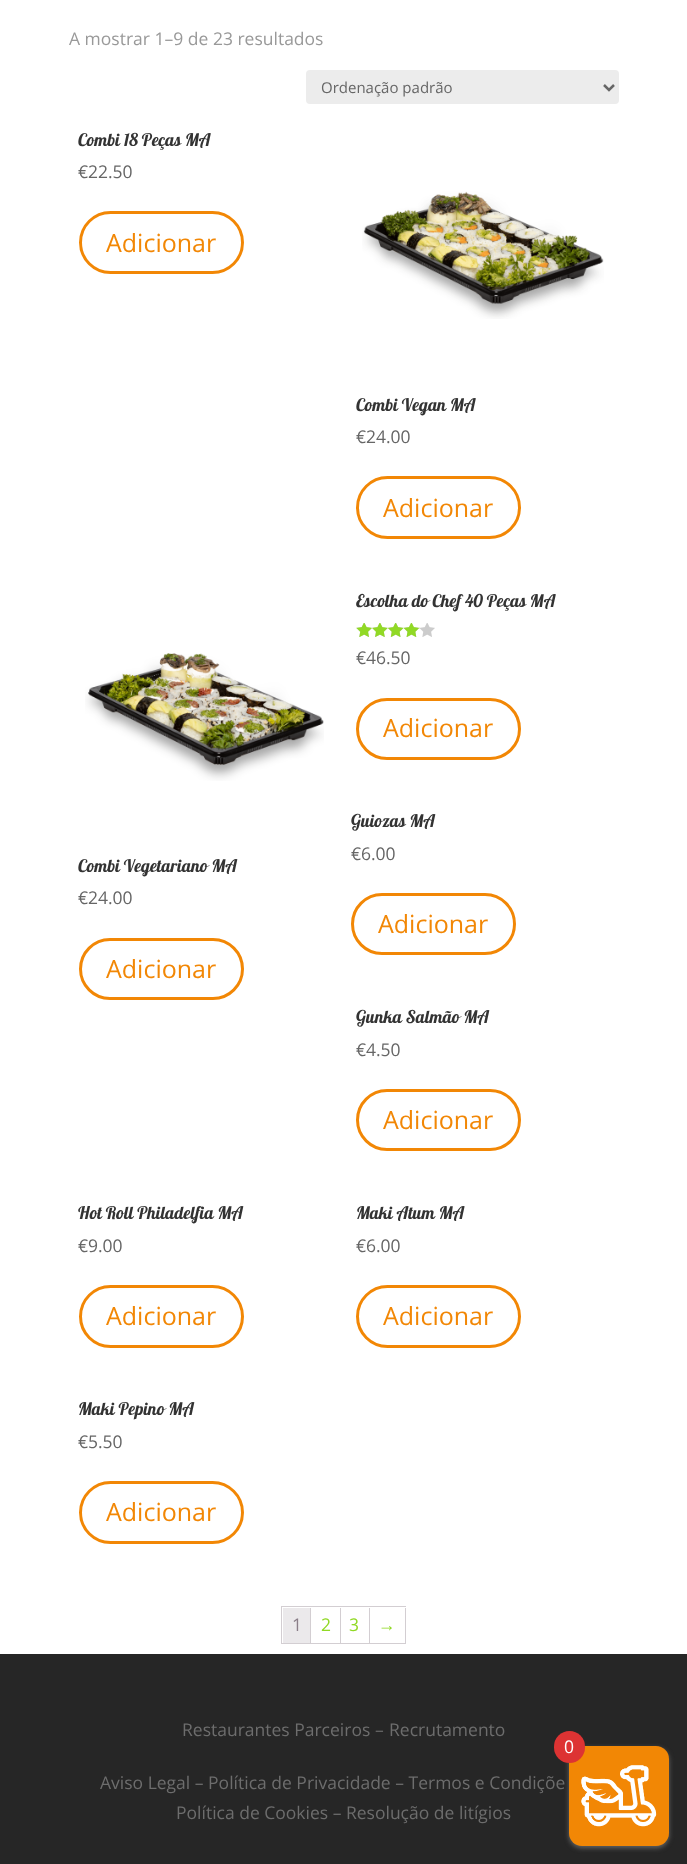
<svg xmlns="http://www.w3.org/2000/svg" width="687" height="1864">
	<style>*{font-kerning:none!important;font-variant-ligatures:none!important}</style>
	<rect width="100%" height="100%" fill="#FFFFFF" />
	<text x="69" y="45" font-family="Open Sans" font-size="17.5" fill="#999999">A mostrar 1–9 de 23 resultados</text>
	<rect x="306" y="70" width="313" height="34" rx="4" fill="#ECECEC" />
	<path d="M604 85L609 90L614 85" fill="none" stroke="#666666" stroke-width="2.5" />
	<text x="321" y="93" font-family="Open Sans" font-size="15" fill="#666666">Ordenação padrão</text>
	<text x="78" y="146" font-family="Lobster" font-size="17.5" fill="#333333">Combi 18 Peças MA</text>
	<text x="78" y="178" font-family="Open Sans" font-size="17.5" fill="#666666">€22.50</text>
	<rect x="80.5" y="212.5" width="162" height="60" rx="30" fill="none" stroke="#F28705" stroke-width="3" />
	<text x="106" y="252" font-family="Open Sans" font-size="25" fill="#F28705">Adicionar</text>
	<image x="362" y="191" width="242" height="128" href="assets/img1.png" />
	<text x="356" y="411" font-family="Lobster" font-size="17.5" fill="#333333">Combi Vegan MA</text>
	<text x="356" y="443" font-family="Open Sans" font-size="17.5" fill="#666666">€24.00</text>
	<rect x="357.5" y="477.5" width="162" height="60" rx="30" fill="none" stroke="#F28705" stroke-width="3" />
	<text x="383" y="517" font-family="Open Sans" font-size="25" fill="#F28705">Adicionar</text>
	<text x="356" y="607" font-family="Lobster" font-size="17.5" fill="#333333">Escolha do Chef 40 Peças MA</text>
	<image x="356" y="623" width="79" height="14" href="assets/img2.png" />
	<image x="356" y="623" width="64" height="14" href="assets/img3.png" />
	<text x="356" y="664" font-family="Open Sans" font-size="17.5" fill="#666666">€46.50</text>
	<rect x="357.5" y="699.5" width="162" height="59" rx="29.5" fill="none" stroke="#F28705" stroke-width="3" />
	<text x="383" y="737" font-family="Open Sans" font-size="25" fill="#F28705">Adicionar</text>
	<image x="85" y="653" width="239" height="128" href="assets/img4.png" />
	<text x="78" y="872" font-family="Lobster" font-size="17.5" fill="#333333">Combi Vegetariano MA</text>
	<text x="78" y="904" font-family="Open Sans" font-size="17.5" fill="#666666">€24.00</text>
	<rect x="80.5" y="939.5" width="162" height="59" rx="29.5" fill="none" stroke="#F28705" stroke-width="3" />
	<text x="106" y="978" font-family="Open Sans" font-size="25" fill="#F28705">Adicionar</text>
	<text x="351" y="827" font-family="Lobster" font-size="17.5" fill="#333333">Guiozas MA</text>
	<text x="351" y="860" font-family="Open Sans" font-size="17.5" fill="#666666">€6.00</text>
	<rect x="352.5" y="894.5" width="162" height="59" rx="29.5" fill="none" stroke="#F28705" stroke-width="3" />
	<text x="378" y="933" font-family="Open Sans" font-size="25" fill="#F28705">Adicionar</text>
	<text x="356" y="1023" font-family="Lobster" font-size="17.5" fill="#333333">Gunka Salmão MA</text>
	<text x="356" y="1056" font-family="Open Sans" font-size="17.5" fill="#666666">€4.50</text>
	<rect x="357.5" y="1090.5" width="162" height="59" rx="29.5" fill="none" stroke="#F28705" stroke-width="3" />
	<text x="383" y="1129" font-family="Open Sans" font-size="25" fill="#F28705">Adicionar</text>
	<text x="78" y="1219" font-family="Lobster" font-size="17.5" fill="#333333">Hot Roll Philadelfia MA</text>
	<text x="78" y="1252" font-family="Open Sans" font-size="17.5" fill="#666666">€9.00</text>
	<rect x="80.5" y="1286.5" width="162" height="60" rx="30" fill="none" stroke="#F28705" stroke-width="3" />
	<text x="106" y="1325" font-family="Open Sans" font-size="25" fill="#F28705">Adicionar</text>
	<text x="356" y="1219" font-family="Lobster" font-size="17.5" fill="#333333">Maki Atum MA</text>
	<text x="356" y="1252" font-family="Open Sans" font-size="17.5" fill="#666666">€6.00</text>
	<rect x="357.5" y="1286.5" width="162" height="60" rx="30" fill="none" stroke="#F28705" stroke-width="3" />
	<text x="383" y="1325" font-family="Open Sans" font-size="25" fill="#F28705">Adicionar</text>
	<text x="78" y="1415" font-family="Lobster" font-size="17.5" fill="#333333">Maki Pepino MA</text>
	<text x="78" y="1448" font-family="Open Sans" font-size="17.5" fill="#666666">€5.50</text>
	<rect x="80.5" y="1482.5" width="162" height="60" rx="30" fill="none" stroke="#F28705" stroke-width="3" />
	<text x="106" y="1521" font-family="Open Sans" font-size="25" fill="#F28705">Adicionar</text>
	<rect x="281" y="1606" width="125" height="1" fill="#D3CED2" />
	<rect x="281" y="1643" width="125" height="1" fill="#D3CED2" />
	<rect x="281" y="1606" width="1" height="38" fill="#D3CED2" />
	<rect x="310" y="1608" width="1" height="35" fill="#D3CED2" />
	<rect x="283" y="1608" width="27" height="35" fill="#EBE9EB" />
	<text x="292" y="1631" font-family="Open Sans" font-size="17.5" fill="#8A7E88">1</text>
	<rect x="340" y="1608" width="1" height="35" fill="#D3CED2" />
	<text x="321" y="1631" font-family="Open Sans" font-size="17.5" fill="#91D925">2</text>
	<rect x="369" y="1608" width="1" height="35" fill="#D3CED2" />
	<text x="349" y="1631" font-family="Open Sans" font-size="17.5" fill="#91D925">3</text>
	<rect x="405" y="1608" width="1" height="35" fill="#D3CED2" />
	<text x="378" y="1631" font-family="Liberation Sans" font-size="17.5" fill="#91D925">→</text>
	<rect x="0" y="1654" width="687" height="210" fill="#262626" />
	<text x="182" y="1736" font-family="Open Sans" font-size="17.5" fill="#6D6D6D">Restaurantes Parceiros</text>
	<text x="375" y="1736" font-family="Open Sans" font-size="17.5" fill="#666666">–</text>
	<g font-family="Open Sans" font-size="17.5" fill="#6D6D6D">
		<text x="389" y="1736">Recrutamento</text>
		<text x="100" y="1789">Aviso Legal – Política de Privacidade – Termos e Condiçõe</text>
		<text x="176" y="1819">Política de Cookies – Resolução de litígios</text>
	</g>
	<rect x="569" y="1748" width="100" height="100" rx="13" fill="#666666" filter="blur(2.5px)" />
	<rect x="569" y="1746" width="100" height="100" rx="13" fill="#F28705" />
	<rect x="554" y="1731" width="31" height="32" rx="15.5" fill="#DD3333" />
	<text x="564" y="1753" font-family="Open Sans" font-size="17.5" fill="#FFFFFF">0</text>
	<image x="581" y="1765" width="76" height="62" href="assets/img5.png" />
</svg>
